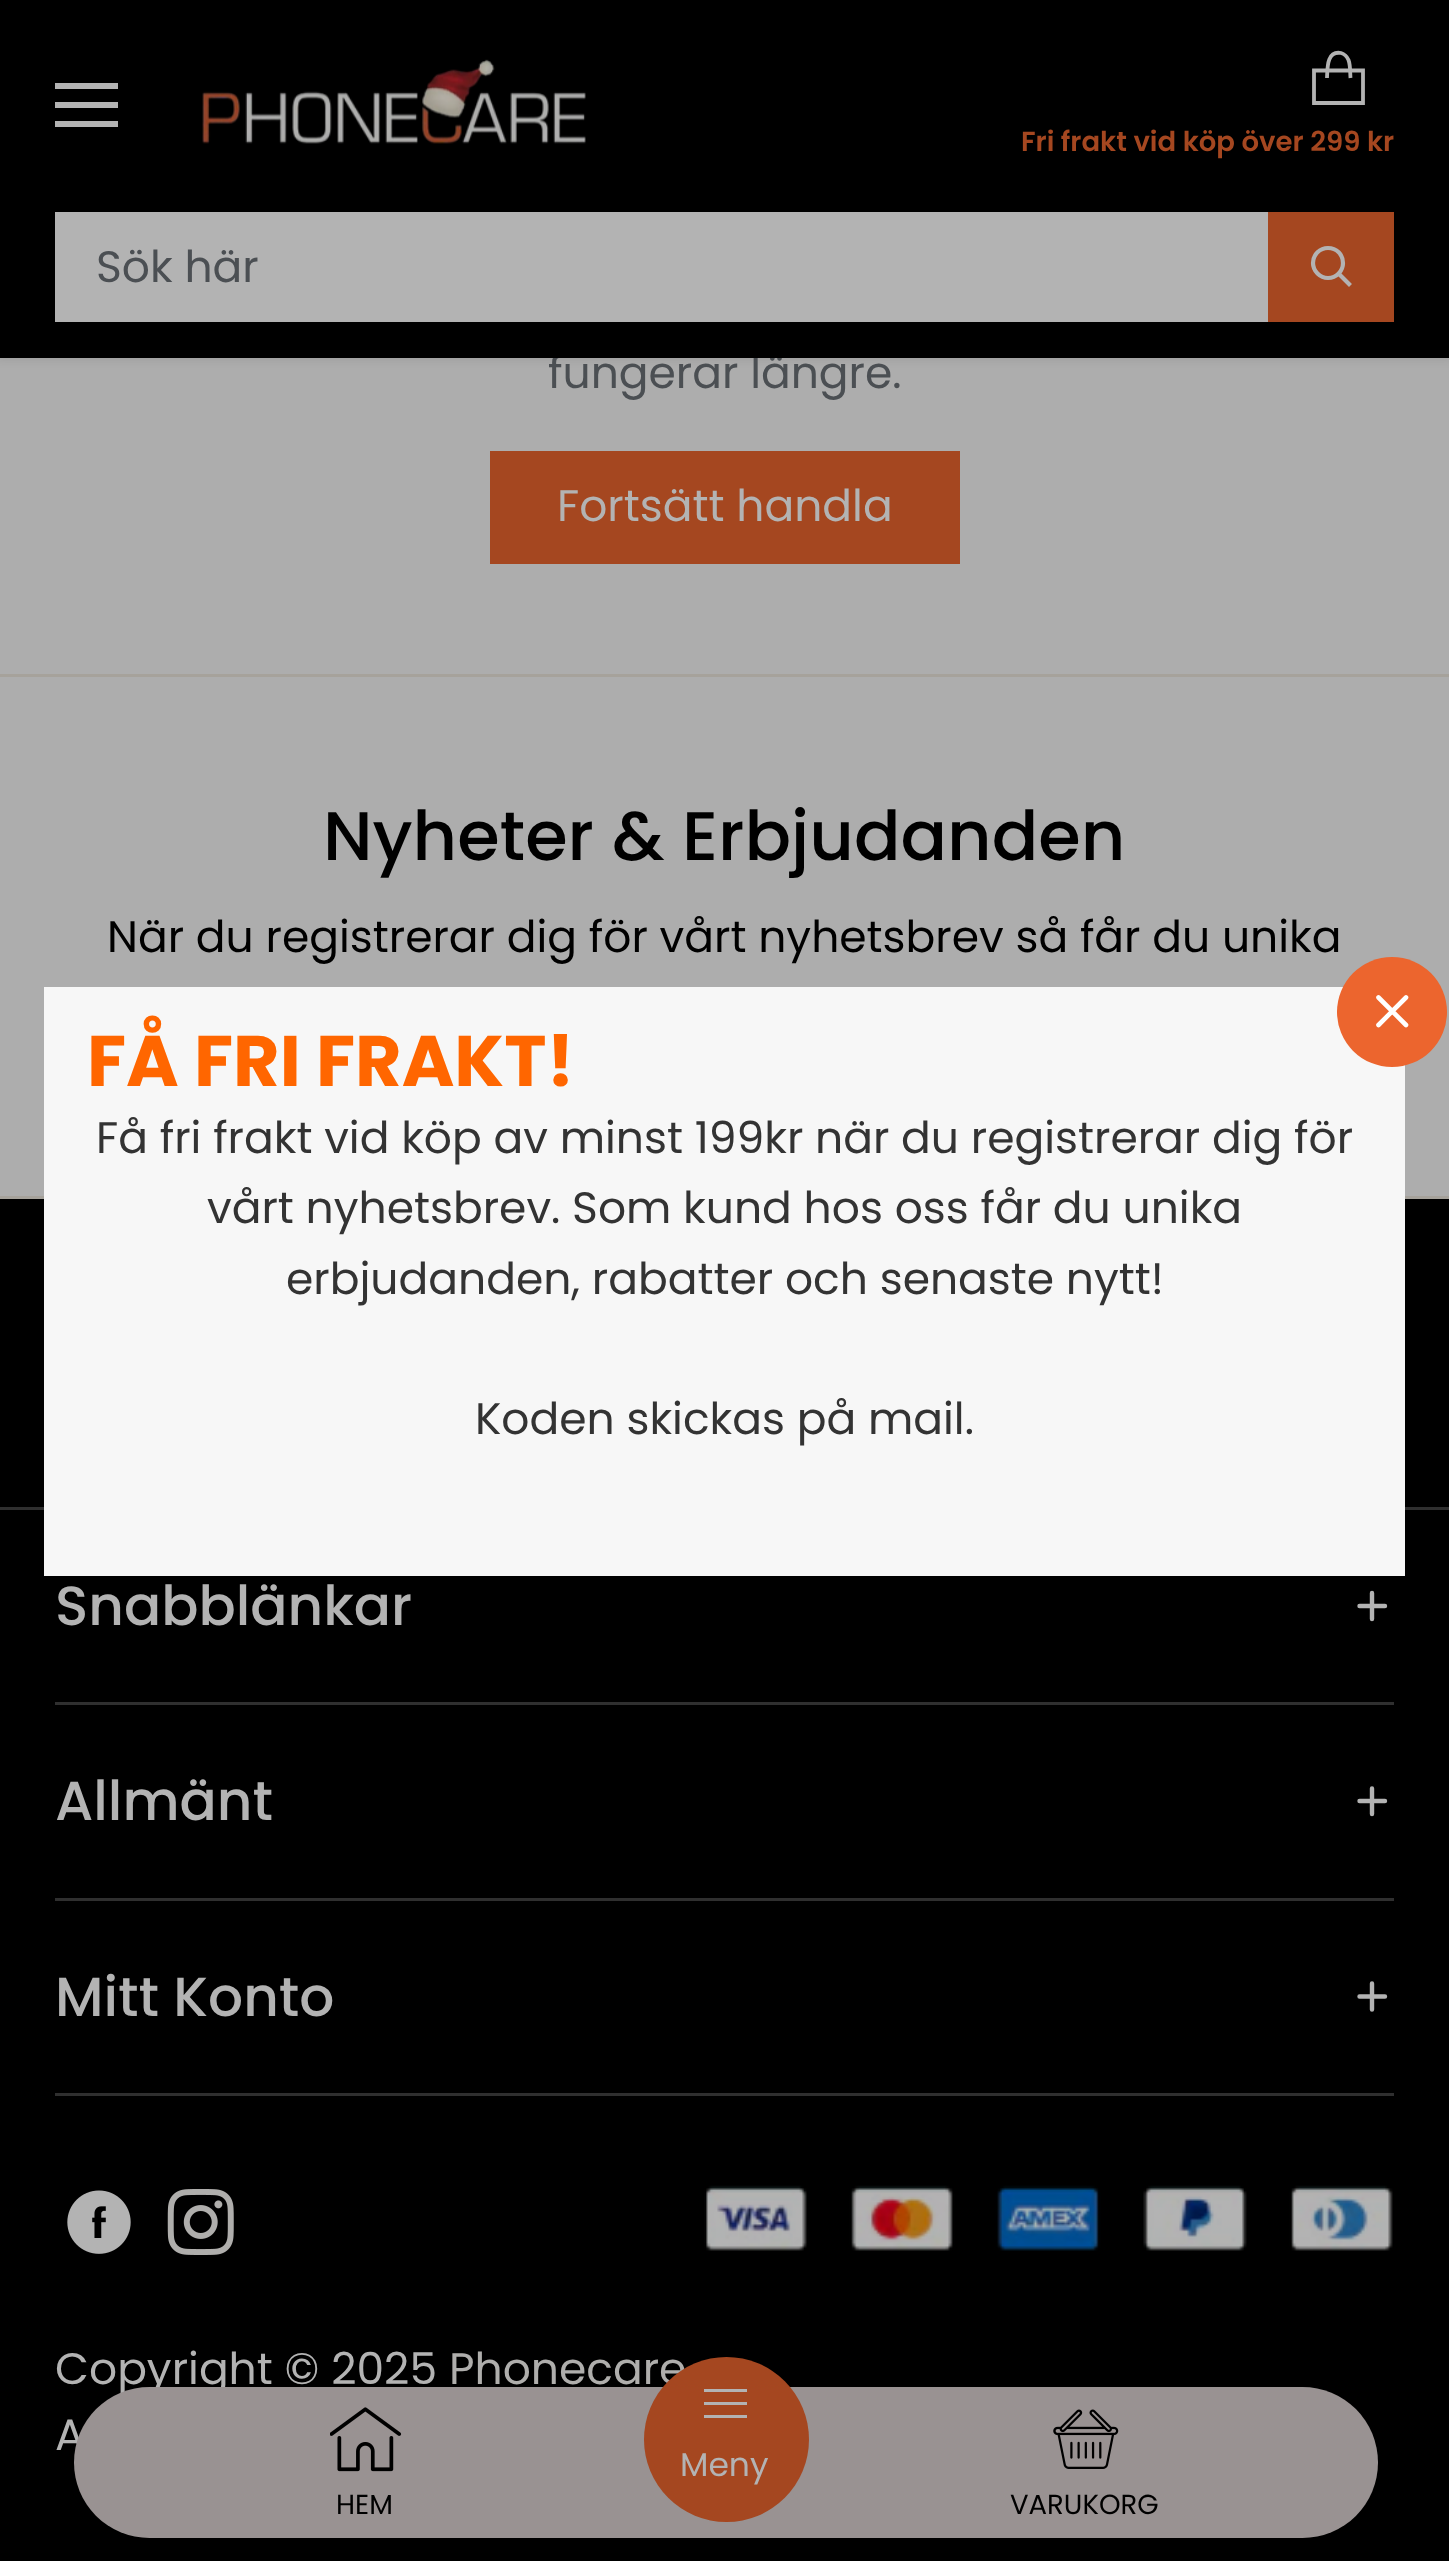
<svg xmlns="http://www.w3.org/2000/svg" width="1449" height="2561">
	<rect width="100%" height="100%" fill="#ADADAD" />
	<rect x="-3" y="-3" width="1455" height="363" fill="#000000" fill-opacity="0.08" filter="blur(4px)" />
	<text x="548" y="388" font-family="Poppins" font-size="44" fill="#4B4F53">fungerar längre.</text>
	<rect x="0" y="0" width="1449" height="358" fill="#000000" />
	<rect x="55" y="83" width="63" height="6" fill="#B3B3B3" />
	<rect x="55" y="102" width="63" height="6" fill="#B3B3B3" />
	<rect x="55" y="121" width="63" height="6" fill="#B3B3B3" />
	<image x="202" y="59" width="384" height="85" href="assets/img1.png" />
	<path d="M1350.5 78C1350 72 1350.5 65.5 1348.5 60C1347 56.5 1344.5 54 1341 53C1326.5 50.5 1327.5 68.5 1327 78" fill="none" stroke="#B3B3B3" stroke-width="3.8" stroke-linejoin="bevel" />
	<path d="M1363 103V70.5H1314V103Z" fill="none" stroke="#B3B3B3" stroke-width="3.8" />
	<text x="1021" y="151" font-family="Poppins" font-size="27.5" font-weight="600" fill="#A54720">Fri frakt vid köp över 299 kr</text>
	<rect x="55" y="212" width="1213" height="110" fill="#B3B3B3" />
	<text x="96" y="282" font-family="Poppins" font-size="44" fill="#4B4F53">Sök här</text>
	<rect x="1268" y="212" width="126" height="110" fill="#A54720" />
	<path d="M1349 284L1339 274" fill="none" stroke="#B3B3B3" stroke-width="4.2" stroke-linecap="square" />
	<path d="M1328 278C1336.5 278 1343 271 1343 263C1343 254.5 1336.5 248 1328 248C1320 248 1313 254.5 1313 263C1313 271 1320 278 1328 278Z" fill="none" stroke="#B3B3B3" stroke-width="4.2" />
	<rect x="490" y="451" width="470" height="113" fill="#A54720" />
	<text x="557" y="521" font-family="Poppins" font-size="44" fill="#B3B3B3">Fortsätt handla</text>
	<rect x="0" y="674" width="1449" height="3" fill="#A6A29B" />
	<text x="323" y="860" font-family="Poppins" font-size="68.75" font-weight="500" fill="#000000">Nyheter &amp; Erbjudanden</text>
	<text x="107" y="952" font-family="Poppins" font-size="44" fill="#000000">När du registrerar dig för vårt nyhetsbrev så får du unika</text>
	<rect x="0" y="1199" width="1449" height="308" fill="#000000" />
	<rect x="0" y="1196" width="1449" height="3" fill="#A6A29B" />
	<rect x="0" y="1507" width="1449" height="3" fill="#2F2F2F" />
	<rect x="0" y="1510" width="1449" height="1051" fill="#000000" />
	<rect x="55" y="1702" width="1339" height="3" fill="#2F2F2F" />
	<text x="55" y="1625" font-family="Poppins" font-size="55" font-weight="500" fill="#B3B3B3">Snabblänkar</text>
	<path d="M1372 1593V1619M1359.5 1606H1385" fill="none" stroke="#B3B3B3" stroke-width="4.4" stroke-linecap="round" stroke-linejoin="round" />
	<rect x="55" y="1898" width="1339" height="3" fill="#2F2F2F" />
	<text x="55" y="1820" font-family="Poppins" font-size="55" font-weight="500" fill="#B3B3B3">Allmänt</text>
	<path d="M1372 1788.5V1814M1359.5 1801H1385" fill="none" stroke="#B3B3B3" stroke-width="4.4" stroke-linecap="round" stroke-linejoin="round" />
	<rect x="55" y="2093" width="1339" height="3" fill="#2F2F2F" />
	<text x="55" y="2016" font-family="Poppins" font-size="55" font-weight="500" fill="#B3B3B3">Mitt Konto</text>
	<path d="M1372 1983.5V2009.5M1359.5 1996.5H1385" fill="none" stroke="#B3B3B3" stroke-width="4.4" stroke-linecap="round" stroke-linejoin="round" />
	<image x="67" y="2190" width="64" height="64" href="assets/img2.png" />
	<image x="167" y="2189" width="67" height="66" href="assets/img3.png" />
	<image x="704" y="2185" width="689" height="66" href="assets/img4.png" />
	<text x="55" y="2384" font-family="Poppins" font-size="44" fill="#B3B3B3">Copyright © 2025</text>
	<text x="449" y="2384" font-family="Poppins" font-size="44" fill="#AFAEAC">Phonecare</text>
	<text x="55" y="2450" font-family="Poppins" font-size="44" fill="#B3B3B3">A</text>
	<rect x="44" y="987" width="1361" height="589" fill="#F7F7F7" />
	<text x="87" y="1086" font-family="Poppins" font-size="71.5" font-weight="700" fill="#FF6600">FÅ FRI FRAKT!</text>
	<g font-family="Poppins" font-size="44" fill="#333333">
		<text x="96" y="1153">Få fri frakt vid köp av minst 199kr när du registrerar dig för</text>
		<text x="207" y="1223">vårt nyhetsbrev. Som kund hos oss får du unika</text>
		<text x="286" y="1294">erbjudanden, rabatter och senaste nytt!</text>
		<text x="475" y="1434">Koden skickas på mail.</text>
	</g>
	<circle cx="1392" cy="1012" r="55" fill="#EC652E" />
	<path d="M1406 997.5L1378.5 1025M1378.5 997.5L1406 1025" fill="none" stroke="#FFFFFF" stroke-width="4.6" stroke-linecap="round" stroke-linejoin="round" />
	<rect x="74" y="2387" width="1304" height="151" rx="75.5" fill="#999292" />
	<circle cx="726.5" cy="2439.5" r="82.5" fill="#A54720" />
	<rect x="704" y="2402" width="43" height="3" fill="#B3B3B3" />
	<rect x="704" y="2389" width="43" height="3" fill="#B3B3B3" />
	<rect x="704" y="2415" width="43" height="3" fill="#B3B3B3" />
	<text x="680" y="2476" font-family="Poppins" font-size="33" fill="#B3B3B3">Meny</text>
	<image x="330" y="2407" width="72" height="65" href="assets/img5.png" />
	<text x="336" y="2514" font-family="Poppins" font-size="27.5" fill="#000000">HEM</text>
	<image x="1053" y="2409" width="66" height="60" href="assets/img6.png" />
	<text x="1010" y="2514" font-family="Poppins" font-size="27.5" fill="#000000">VARUKORG</text>
</svg>
